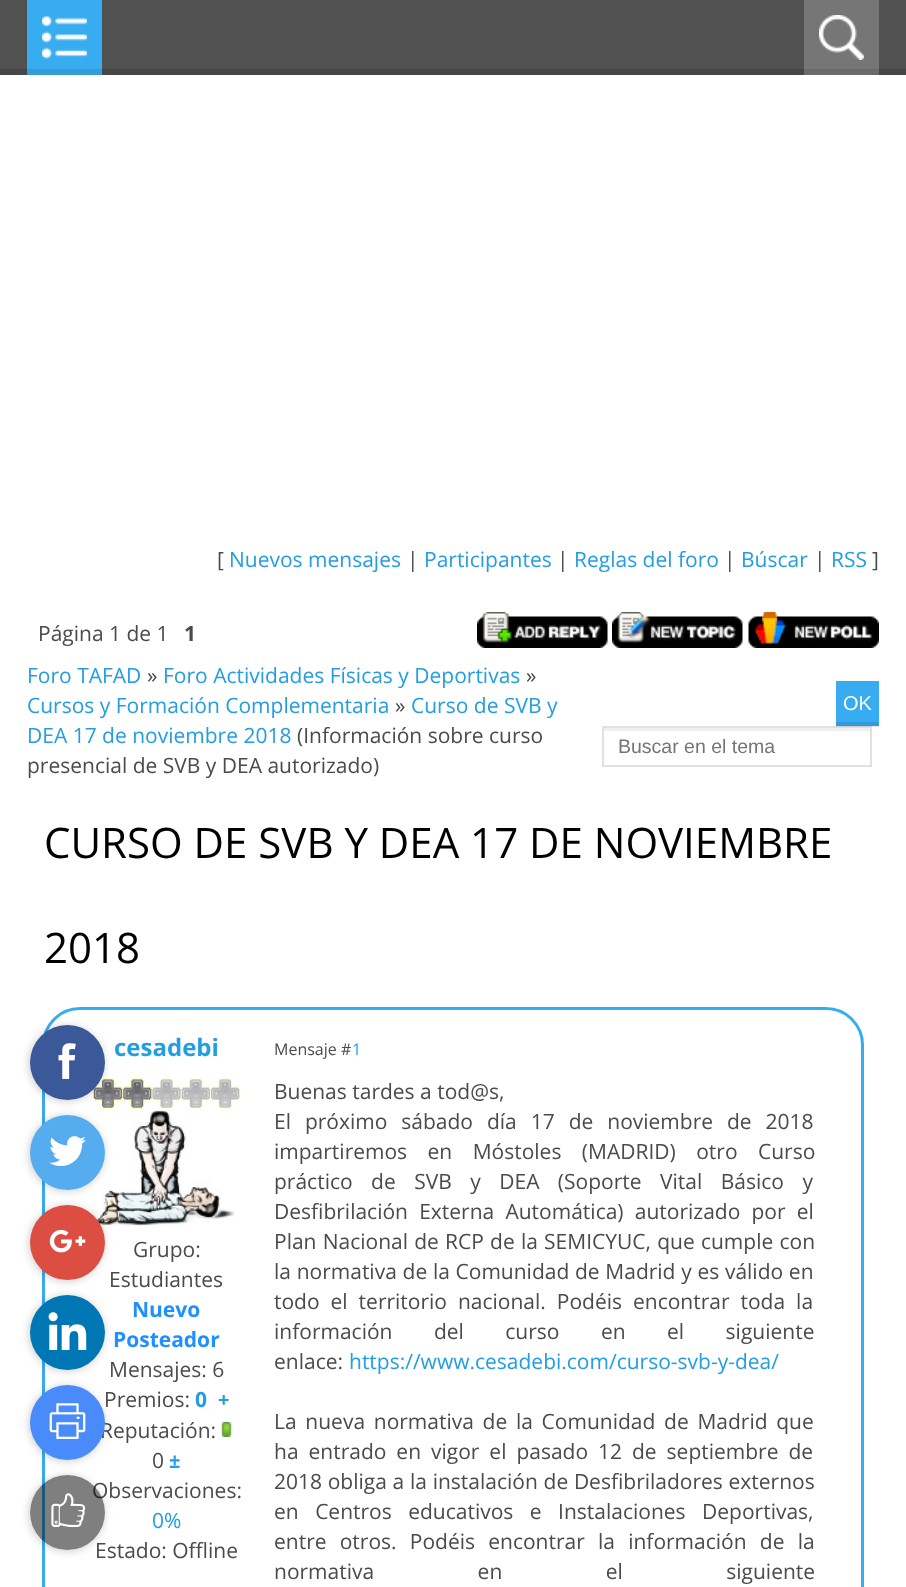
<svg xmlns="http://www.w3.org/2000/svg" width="906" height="1587">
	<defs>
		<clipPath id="clip1"><path d="M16 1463H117V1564H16ZM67.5 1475C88 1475 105 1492 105 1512.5C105 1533 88 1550 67.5 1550C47 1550 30 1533 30 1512.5C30 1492 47 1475 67.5 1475Z" clip-rule="evenodd" /></clipPath>
	</defs>
	<rect width="100%" height="100%" fill="#FFFFFF" />
	<rect x="0" y="0" width="906" height="69" fill="#515151" />
	<rect x="0" y="69" width="906" height="6" fill="#464646" />
	<rect x="27" y="0" width="75" height="69" fill="#38ACF0" />
	<image x="42" y="16" width="45" height="43" href="assets/img1.png" />
	<rect x="27" y="69" width="75" height="6" fill="#339DDA" />
	<rect x="804" y="0" width="75" height="69" fill="#767676" />
	<image x="819" y="15" width="45" height="45" href="assets/img2.png" />
	<rect x="804" y="69" width="75" height="6" fill="#6B6B6B" />
	<text x="217" y="567" font-family="Open Sans" font-size="21" fill="#4B4B4B">[</text>
	<text x="229" y="567" font-family="Open Sans" font-size="21" fill="#239DE4">Nuevos mensajes</text>
	<text x="407" y="567" font-family="Open Sans" font-size="21" fill="#4B4B4B">|</text>
	<text x="424" y="567" font-family="Open Sans" font-size="21" fill="#239DE4">Participantes</text>
	<text x="557" y="567" font-family="Open Sans" font-size="21" fill="#4B4B4B">|</text>
	<text x="574" y="567" font-family="Open Sans" font-size="21" fill="#239DE4">Reglas del foro</text>
	<text x="724" y="567" font-family="Open Sans" font-size="21" fill="#4B4B4B">|</text>
	<text x="741" y="567" font-family="Open Sans" font-size="21" fill="#239DE4">Búscar</text>
	<text x="814" y="567" font-family="Open Sans" font-size="21" fill="#4B4B4B">|</text>
	<text x="831" y="567" font-family="Open Sans" font-size="21" fill="#239DE4">RSS</text>
	<g font-family="Open Sans" font-size="21" fill="#4B4B4B">
		<text x="872" y="567">]</text>
		<text x="38" y="641">Página 1 de 1</text>
	</g>
	<text x="184" y="641" font-family="Open Sans" font-size="21" font-weight="700" fill="#4B4B4B">1</text>
	<image x="477" y="612" width="131" height="36" href="assets/img3.png" />
	<image x="612" y="612" width="131" height="36" href="assets/img4.png" />
	<image x="748" y="612" width="131" height="36" href="assets/img5.png" />
	<text x="27" y="683" font-family="Open Sans" font-size="21" fill="#239DE4">Foro TAFAD</text>
	<text x="147" y="683" font-family="Open Sans" font-size="21" fill="#4B4B4B">»</text>
	<text x="163" y="683" font-family="Open Sans" font-size="21" fill="#239DE4">Foro Actividades Físicas y Deportivas</text>
	<text x="526" y="683" font-family="Open Sans" font-size="21" fill="#4B4B4B">»</text>
	<text x="27" y="713" font-family="Open Sans" font-size="21" fill="#239DE4">Cursos y Formación Complementaria</text>
	<text x="395" y="713" font-family="Open Sans" font-size="21" fill="#4B4B4B">»</text>
	<g font-family="Open Sans" font-size="21" fill="#239DE4">
		<text x="411" y="713">Curso de SVB y</text>
		<text x="27" y="743">DEA 17 de noviembre 2018</text>
	</g>
	<g font-family="Open Sans" font-size="21" fill="#4B4B4B">
		<text x="297" y="743">(Información sobre curso</text>
		<text x="27" y="773">presencial de SVB y DEA autorizado)</text>
	</g>
	<rect x="836" y="681" width="43" height="45" fill="#38ACF0" />
	<rect x="603" y="728" width="267" height="3" fill="#F0F0F0" />
	<rect x="603" y="727" width="268" height="39" fill="none" stroke="#E1E1E1" stroke-width="2" />
	<rect x="836" y="722" width="43" height="5" fill="#000000" fill-opacity="0.09" />
	<text x="843" y="710" font-family="Liberation Sans" font-size="20" fill="#FFFFFF">OK</text>
	<text x="618" y="753" font-family="Liberation Sans" font-size="19.5" fill="#757575">Buscar en el tema</text>
	<g font-family="Open Sans" font-size="42" fill="#000000">
		<text x="44" y="858">CURSO DE SVB Y DEA 17 DE NOVIEMBRE</text>
		<text x="44" y="963">2018</text>
	</g>
	<rect x="43.5" y="1008.5" width="819" height="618" rx="36.5" fill="none" stroke="#38ACF0" stroke-width="3" />
	<text x="114" y="1056" font-family="Open Sans" font-size="24" font-weight="700" fill="#239DE4">cesadebi</text>
	<text x="274" y="1055" font-family="Open Sans" font-size="16" fill="#4B4B4B">Mensaje #</text>
	<text x="352" y="1055" font-family="Open Sans" font-size="16" fill="#239DE4">1</text>
	<image x="92" y="1078" width="149" height="31" href="assets/img6.png" />
	<image x="91" y="1110" width="144" height="117" href="assets/img7.png" />
	<g font-family="Open Sans" font-size="21" fill="#4B4B4B">
		<text x="133" y="1257">Grupo:</text>
		<text x="109" y="1287">Estudiantes</text>
	</g>
	<g font-family="Open Sans" font-size="21" font-weight="700" fill="#1E90FF">
		<text x="132" y="1317">Nuevo</text>
		<text x="113" y="1347">Posteador</text>
	</g>
	<g font-family="Open Sans" font-size="21" fill="#4B4B4B">
		<text x="109" y="1377">Mensajes: 6</text>
		<text x="104" y="1407">Premios:</text>
	</g>
	<text x="195" y="1407" font-family="Open Sans" font-size="21" font-weight="700" fill="#239DE4">0</text>
	<text x="218" y="1407" font-family="Open Sans" font-size="20" font-weight="700" fill="#239DE4">+</text>
	<text x="100" y="1438" font-family="Open Sans" font-size="21" fill="#4B4B4B">Reputación:</text>
	<image x="220" y="1422" width="12" height="15" href="assets/img8.png" />
	<text x="152" y="1468" font-family="Open Sans" font-size="21" fill="#4B4B4B">0</text>
	<text x="169" y="1468" font-family="Open Sans" font-size="20" font-weight="700" fill="#239DE4">±</text>
	<text x="92" y="1498" font-family="Open Sans" font-size="21" fill="#4B4B4B">Observaciones:</text>
	<text x="152" y="1528" font-family="Open Sans" font-size="21" fill="#239DE4">0%</text>
	<g font-family="Open Sans" font-size="21" fill="#4B4B4B">
		<text x="95" y="1558">Estado: Offline</text>
		<text x="274" y="1099">Buenas tardes a tod@s,</text>
		<text x="274" y="1129" word-spacing="8.5">El próximo sábado día 17 de noviembre de 2018</text>
		<text x="274" y="1159" word-spacing="15">impartiremos en Móstoles (MADRID) otro Curso</text>
		<text x="274" y="1189" word-spacing="13">práctico de SVB y DEA (Soporte Vital Básico y</text>
		<text x="274" y="1219" word-spacing="5.75">Desfibrilación Externa Automática) autorizado por el</text>
		<text x="274" y="1249" word-spacing="0.75">Plan Nacional de RCP de la SEMICYUC, que cumple con</text>
		<text x="274" y="1279" word-spacing="0.25">la normativa de la Comunidad de Madrid y es válido en</text>
		<text x="274" y="1309" word-spacing="5.5">todo el territorio nacional. Podéis encontrar toda la</text>
		<text x="274" y="1339" word-spacing="36">información del curso en el siguiente</text>
		<text x="274" y="1369">enlace:</text>
	</g>
	<text x="349" y="1369" font-family="Open Sans" font-size="21" fill="#239DE4">https://www.cesadebi.com/curso-svb-y-dea/</text>
	<g font-family="Open Sans" font-size="21" fill="#4B4B4B">
		<text x="274" y="1429" word-spacing="3.25">La nueva normativa de la Comunidad de Madrid que</text>
		<text x="274" y="1459" word-spacing="4.5">ha entrado en vigor el pasado 12 de septiembre de</text>
		<text x="274" y="1489" word-spacing="0.25">2018 obliga a la instalación de Desfibriladores externos</text>
		<text x="274" y="1519" word-spacing="11">en Centros educativos e Instalaciones Deportivas,</text>
		<text x="274" y="1549" word-spacing="7.75">entre otros. Podéis encontrar la información de la</text>
		<text x="274" y="1579" word-spacing="98">normativa en el siguiente</text>
	</g>
	<rect x="29" y="1026" width="75" height="75" rx="37.5" fill="#000000" fill-opacity="0.2" filter="blur(4px)" />
	<circle cx="67.5" cy="1062.5" r="37.5" fill="#3B5998" />
	<image x="58" y="1043" width="18" height="36" href="assets/img9.png" />
	<rect x="29" y="1116" width="75" height="75" rx="37.5" fill="#000000" fill-opacity="0.2" filter="blur(4px)" />
	<circle cx="67.5" cy="1152.5" r="37.5" fill="#55ACEE" />
	<image x="49" y="1136" width="37" height="30" href="assets/img10.png" />
	<rect x="29" y="1206" width="75" height="75" rx="37.5" fill="#000000" fill-opacity="0.2" filter="blur(4px)" />
	<circle cx="67.5" cy="1242.5" r="37.5" fill="#DC4E41" />
	<image x="49" y="1229" width="37" height="24" href="assets/img11.png" />
	<rect x="29" y="1296" width="75" height="75" rx="37.5" fill="#000000" fill-opacity="0.2" filter="blur(4px)" />
	<circle cx="67.5" cy="1332.5" r="37.5" fill="#0077B5" />
	<image x="48" y="1312" width="39" height="38" href="assets/img12.png" />
	<rect x="29" y="1386" width="75" height="75" rx="37.5" fill="#000000" fill-opacity="0.2" filter="blur(4px)" />
	<circle cx="67.5" cy="1422.5" r="37.5" fill="#498BFA" />
	<image x="49" y="1403" width="37" height="36" href="assets/img13.png" />
	<g clip-path="url(#clip1)">
		<rect x="29" y="1476" width="75" height="75" rx="37.5" fill="#000000" fill-opacity="0.2" filter="blur(4px)" />
	</g>
	<circle cx="67.5" cy="1512.5" r="37.5" fill="#000000" fill-opacity="0.5" />
	<image x="51" y="1493" width="35" height="34" href="assets/img14.png" />
</svg>
